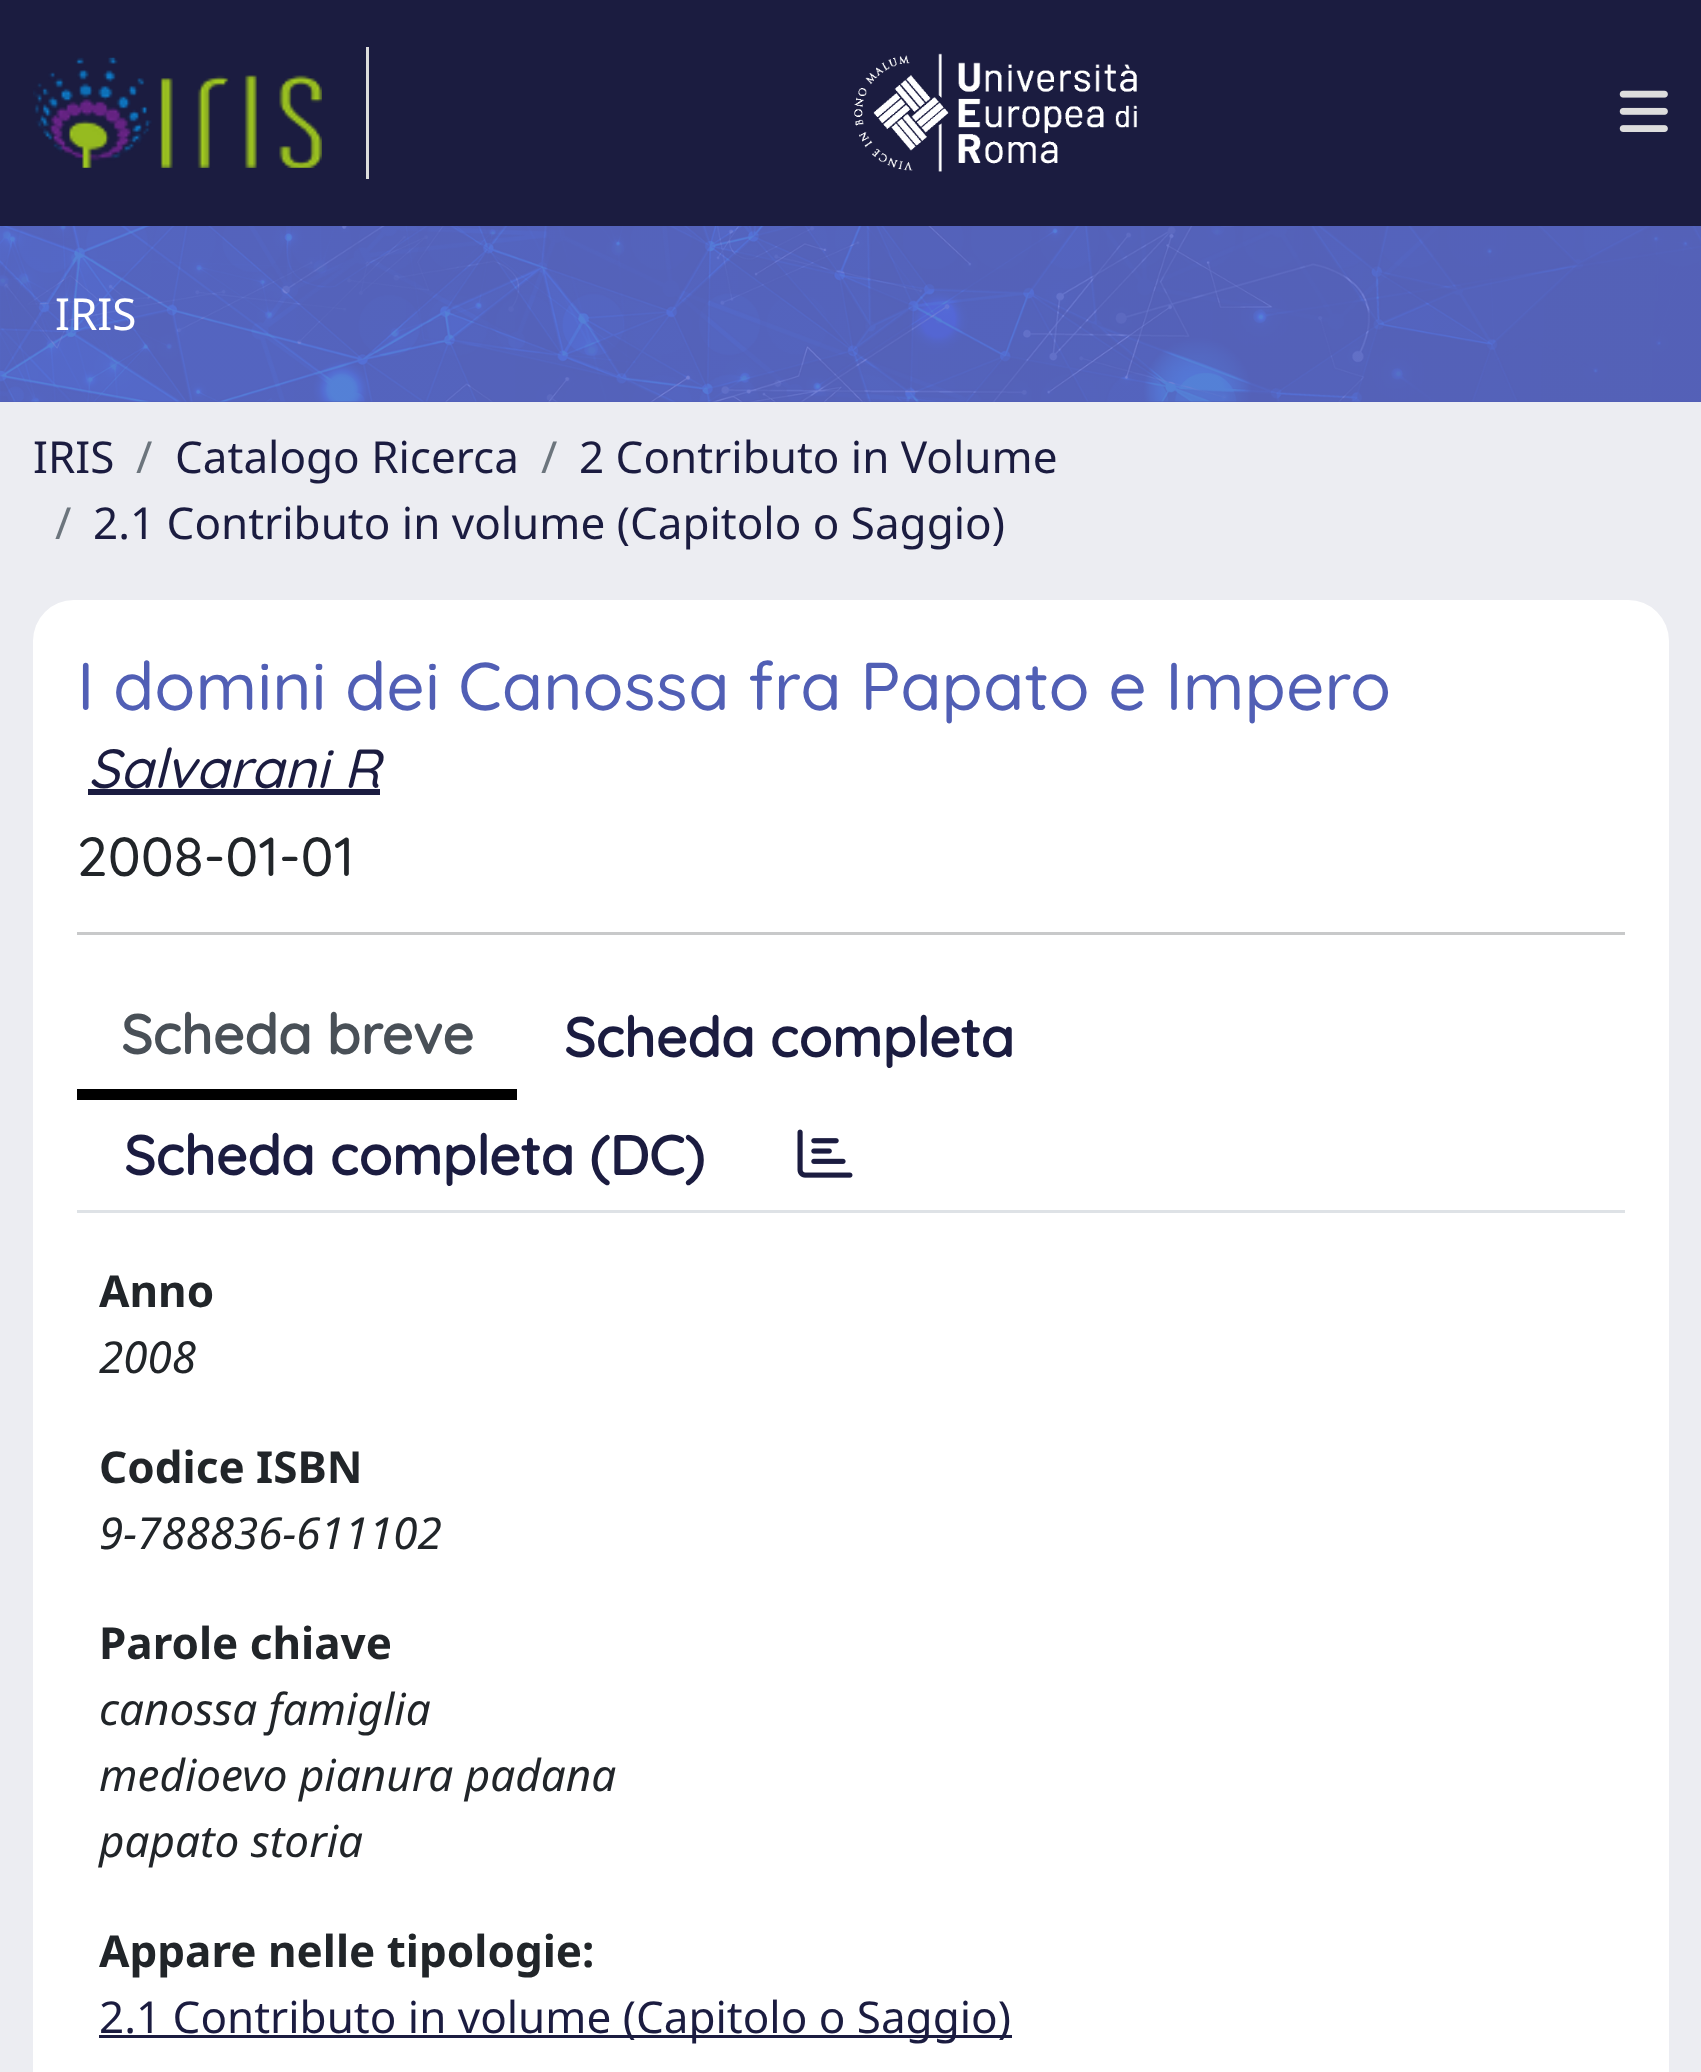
<svg xmlns="http://www.w3.org/2000/svg" width="1701" height="2072">
	<rect width="100%" height="100%" fill="#ECEDF2" />
	<rect x="0" y="0" width="1701" height="226" fill="#1B1C40" />
	<rect x="366" y="47" width="3" height="132" fill="#DDDDDD" />
	<image x="33" y="57" width="289" height="111" href="assets/img1.png" />
	<image x="854" y="53" width="283" height="119" href="assets/img2.png" />
	<image x="1619" y="90" width="49" height="42" href="assets/img3.png" />
	<rect x="0" y="226" width="1701" height="176" fill="#515FB5" />
	<image x="0" y="226" width="1701" height="176" href="assets/img4.png" />
	<text x="55" y="330" font-family="Noto Sans" font-size="44" fill="#FFFFFF">IRIS</text>
	<text x="33" y="473" font-family="Noto Sans" font-size="44" fill="#1B1C40">IRIS</text>
	<text x="136" y="473" font-family="Noto Sans" font-size="44" fill="#6C757D">/</text>
	<text x="175" y="473" font-family="Noto Sans" font-size="44" fill="#1B1C40">Catalogo Ricerca</text>
	<text x="541" y="473" font-family="Noto Sans" font-size="44" fill="#6C757D">/</text>
	<text x="579" y="473" font-family="Noto Sans" font-size="44" fill="#1B1C40">2 Contributo in Volume</text>
	<text x="55" y="539" font-family="Noto Sans" font-size="44" fill="#6C757D">/</text>
	<text x="93" y="539" font-family="Noto Sans" font-size="44" fill="#1B1C40">2.1 Contributo in volume (Capitolo o Saggio)</text>
	<rect x="33" y="600" width="1636" height="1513" rx="41" fill="#FFFFFF" />
	<text x="77" y="710" font-family="Quicksand" font-size="67.4" font-weight="500" fill="#515FB5">I domini dei Canossa fra Papato e Impero</text>
	<text x="88" y="788" font-family="Quicksand" font-size="55" font-weight="500" font-style="italic" fill="#1B1C40">Salvarani R</text>
	<rect x="88" y="789" width="292" height="6" fill="#1B1C40" />
	<text x="77" y="876" font-family="Quicksand" font-size="55" font-weight="500" fill="#212529">2008-01-01</text>
	<rect x="77" y="932" width="1548" height="3" fill="#C8C9CA" />
	<rect x="77" y="1210" width="1548" height="3" fill="#DEE2E6" />
	<rect x="77" y="1089" width="440" height="11" fill="#000000" />
	<text x="121" y="1054" font-family="Quicksand" font-size="55" font-weight="700" fill="#495057">Scheda breve</text>
	<g font-family="Quicksand" font-size="55" font-weight="700" fill="#1B1C40">
		<text x="564" y="1057">Scheda completa</text>
		<text x="124" y="1175">Scheda completa (DC)</text>
	</g>
	<image x="797" y="1129" width="56" height="49" href="assets/img5.png" />
	<text x="99" y="1307" font-family="Noto Sans" font-size="44" font-weight="700" fill="#212529">Anno</text>
	<text x="99" y="1373" font-family="Noto Sans" font-size="44" font-style="italic" fill="#212529">2008</text>
	<text x="99" y="1483" font-family="Noto Sans" font-size="44" font-weight="700" fill="#212529">Codice ISBN</text>
	<text x="99" y="1549" font-family="Noto Sans" font-size="44" font-style="italic" fill="#212529">9-788836-611102</text>
	<text x="99" y="1659" font-family="Noto Sans" font-size="44" font-weight="700" fill="#212529">Parole chiave</text>
	<g font-family="Noto Sans" font-size="44" font-style="italic" fill="#212529">
		<text x="99" y="1725">canossa famiglia</text>
		<text x="99" y="1791">medioevo pianura padana</text>
		<text x="99" y="1857">papato storia</text>
	</g>
	<text x="99" y="1967" font-family="Noto Sans" font-size="44" font-weight="700" fill="#212529">Appare nelle tipologie:</text>
	<rect x="99" y="2035" width="913" height="3" fill="#1B1C40" />
	<text x="99" y="2033" font-family="Noto Sans" font-size="44" fill="#1B1C40">2.1 Contributo in volume (Capitolo o Saggio)</text>
</svg>
